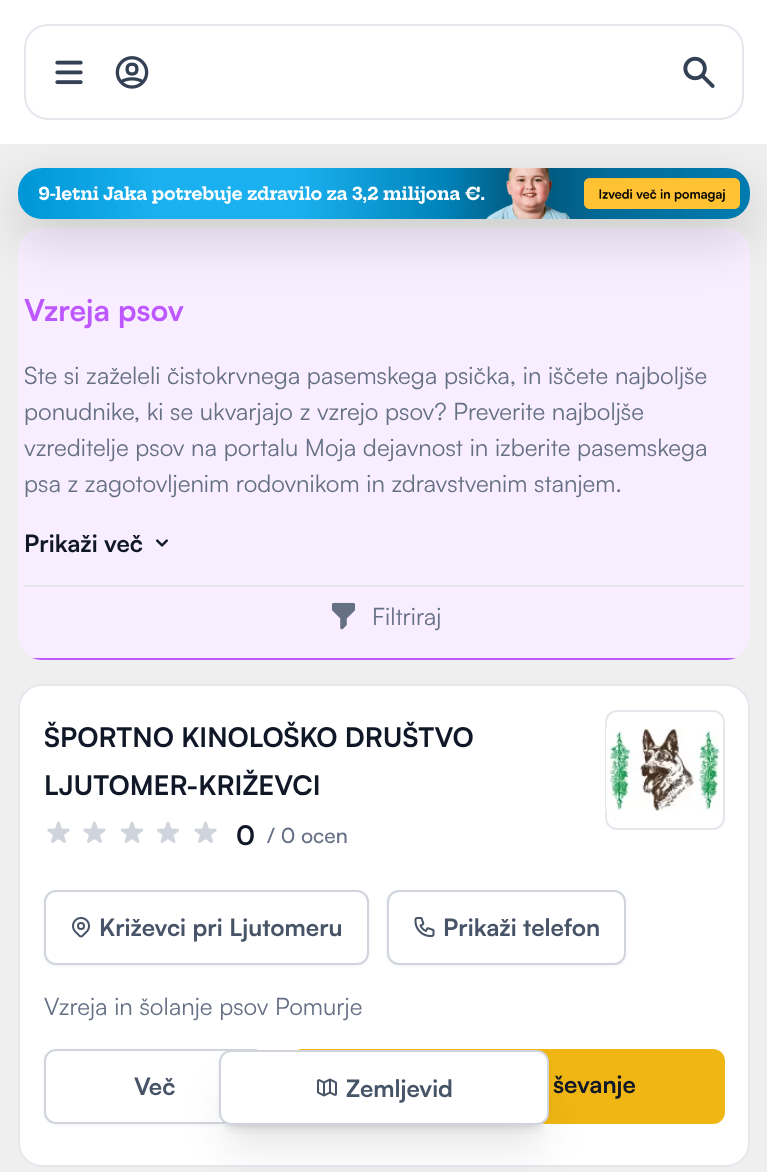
<svg xmlns="http://www.w3.org/2000/svg" width="767" height="1172">
	<defs>
		<clipPath id="clip1"><rect x="18" y="228" width="732" height="432" rx="24" /></clipPath>
		<clipPath id="clip2"><rect x="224" y="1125" width="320" height="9" /></clipPath>
		<clipPath id="clip3"><path d="M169 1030H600V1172H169ZM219 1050H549V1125H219Z" clip-rule="evenodd" /></clipPath>
	</defs>
	<rect width="100%" height="100%" fill="#EFEFEF" />
	<rect x="18" y="228" width="732" height="432" rx="24" fill="#FFFFFF" />
	<g clip-path="url(#clip1)">
		<path d="M-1 228H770V636C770 649.5 759.5 660 746 660H23C9.5 660-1 649.5-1 636Z" fill="#BD57FF" fill-opacity="0.1" />
	</g>
	<rect x="18" y="186" width="732" height="51" rx="24" fill="#000000" fill-opacity="0.16" filter="blur(26px)" />
	<rect x="0" y="0" width="767" height="144" fill="#FFFFFF" />
	<rect x="25" y="25" width="718" height="94" rx="23" fill="none" stroke="#E4E7EC" stroke-width="2" />
	<image x="55" y="60" width="28" height="25" href="assets/img1.png" />
	<image x="115" y="56" width="34" height="33" href="assets/img2.png" />
	<image x="683" y="56" width="32" height="32" href="assets/img3.png" />
	<image x="18" y="168" width="732" height="51" href="assets/img4.png" />
	<path d="M42 660H726C729 660 733 659 736 658H32C35 659 39 660 42 660Z" fill="#BD57FF" />
	<text x="24" y="321" font-family="Satoshi" font-size="30" font-weight="700" fill="#BD57FF">Vzreja psov</text>
	<g font-family="Satoshi" font-size="24" fill="#667085">
		<text x="24" y="384">Ste si zaželeli čistokrvnega pasemskega psička, in iščete najboljše</text>
		<text x="24" y="420">ponudnike, ki se ukvarjajo z vzrejo psov? Preverite najboljše</text>
		<text x="24" y="456">vzreditelje psov na portalu Moja dejavnost in izberite pasemskega</text>
		<text x="24" y="492">psa z zagotovljenim rodovnikom in zdravstvenim stanjem.</text>
	</g>
	<text x="24" y="552" font-family="Satoshi" font-size="24" font-weight="700" fill="#101828">Prikaži več</text>
	<image x="156" y="539" width="12" height="8" href="assets/img5.png" />
	<rect x="24" y="585" width="720" height="2" fill="#E4E7EC" />
	<image x="331" y="602" width="25" height="28" href="assets/img6.png" />
	<text x="372" y="625" font-family="Satoshi" font-size="24" fill="#667085">Filtriraj</text>
	<rect x="19" y="685" width="730" height="481" rx="23" fill="#FFFFFF" stroke="#E4E7EC" stroke-width="2" />
	<g font-family="Satoshi" font-size="27" font-weight="700" fill="#101828">
		<text x="44" y="747">ŠPORTNO KINOLOŠKO DRUŠTVO</text>
		<text x="44" y="795">LJUTOMER-KRIŽEVCI</text>
	</g>
	<image x="47" y="821" width="23" height="22" href="assets/img7.png" />
	<image x="83" y="821" width="23" height="22" href="assets/img7.png" />
	<image x="121" y="821" width="22" height="22" href="assets/img8.png" />
	<image x="157" y="821" width="22" height="22" href="assets/img8.png" />
	<image x="194" y="821" width="23" height="22" href="assets/img7.png" />
	<text x="236" y="845" font-family="Satoshi" font-size="27" font-weight="700" fill="#101828">0</text>
	<text x="267" y="843" font-family="Satoshi" font-size="21" font-weight="500" fill="#667085">/ 0 ocen</text>
	<rect x="44" y="891" width="325" height="75" rx="12" fill="#101828" fill-opacity="0.05" filter="blur(1.5px)" />
	<rect x="45" y="891" width="323" height="73" rx="11" fill="#FFFFFF" stroke="#D0D5DD" stroke-width="2" />
	<image x="72" y="917" width="18" height="21" href="assets/img9.png" />
	<text x="99" y="936" font-family="Satoshi" font-size="24" font-weight="700" fill="#475467">Križevci pri Ljutomeru</text>
	<rect x="387" y="891" width="239" height="75" rx="12" fill="#101828" fill-opacity="0.05" filter="blur(1.5px)" />
	<rect x="388" y="891" width="237" height="73" rx="11" fill="#FFFFFF" stroke="#D0D5DD" stroke-width="2" />
	<image x="414" y="917" width="21" height="20" href="assets/img10.png" />
	<text x="443" y="936" font-family="Satoshi" font-size="24" font-weight="700" fill="#475467">Prikaži telefon</text>
	<text x="44" y="1015" font-family="Satoshi" font-size="24" fill="#667085">Vzreja in šolanje psov Pomurje</text>
	<rect x="606" y="711" width="118" height="118" rx="11" fill="none" stroke="#E4E7EC" stroke-width="2" />
	<image x="606" y="728" width="114" height="83" href="assets/img11.png" />
	<rect x="44" y="1050" width="222" height="75" rx="12" fill="#101828" fill-opacity="0.05" filter="blur(1.5px)" />
	<rect x="45" y="1050" width="220" height="73" rx="11" fill="#FFFFFF" stroke="#D0D5DD" stroke-width="2" />
	<text x="134" y="1095" font-family="Satoshi" font-size="24" font-weight="700" fill="#475467">Več</text>
	<rect x="290" y="1049" width="435" height="75" rx="12" fill="#F0B613" />
	<text x="553" y="1093" font-family="Satoshi" font-size="24" font-weight="700" fill="#101828">ševanje</text>
	<g clip-path="url(#clip2)">
		<rect x="228" y="1071" width="312" height="57" fill="#101828" fill-opacity="0.1" filter="blur(7.5px)" />
	</g>
	<g clip-path="url(#clip3)">
		<rect x="227" y="1088" width="315" height="60" fill="#101828" fill-opacity="0.1" filter="blur(19px)" />
	</g>
	<rect x="219" y="1052" width="330" height="75" rx="12" fill="#101828" fill-opacity="0.05" filter="blur(1.5px)" />
	<rect x="220" y="1051" width="328" height="73" rx="11" fill="#FFFFFF" stroke="#D0D5DD" stroke-width="2" />
	<image x="317" y="1078" width="20" height="19" href="assets/img12.png" />
	<text x="346" y="1097" font-family="Satoshi" font-size="24" font-weight="700" fill="#475467">Zemljevid</text>
</svg>
